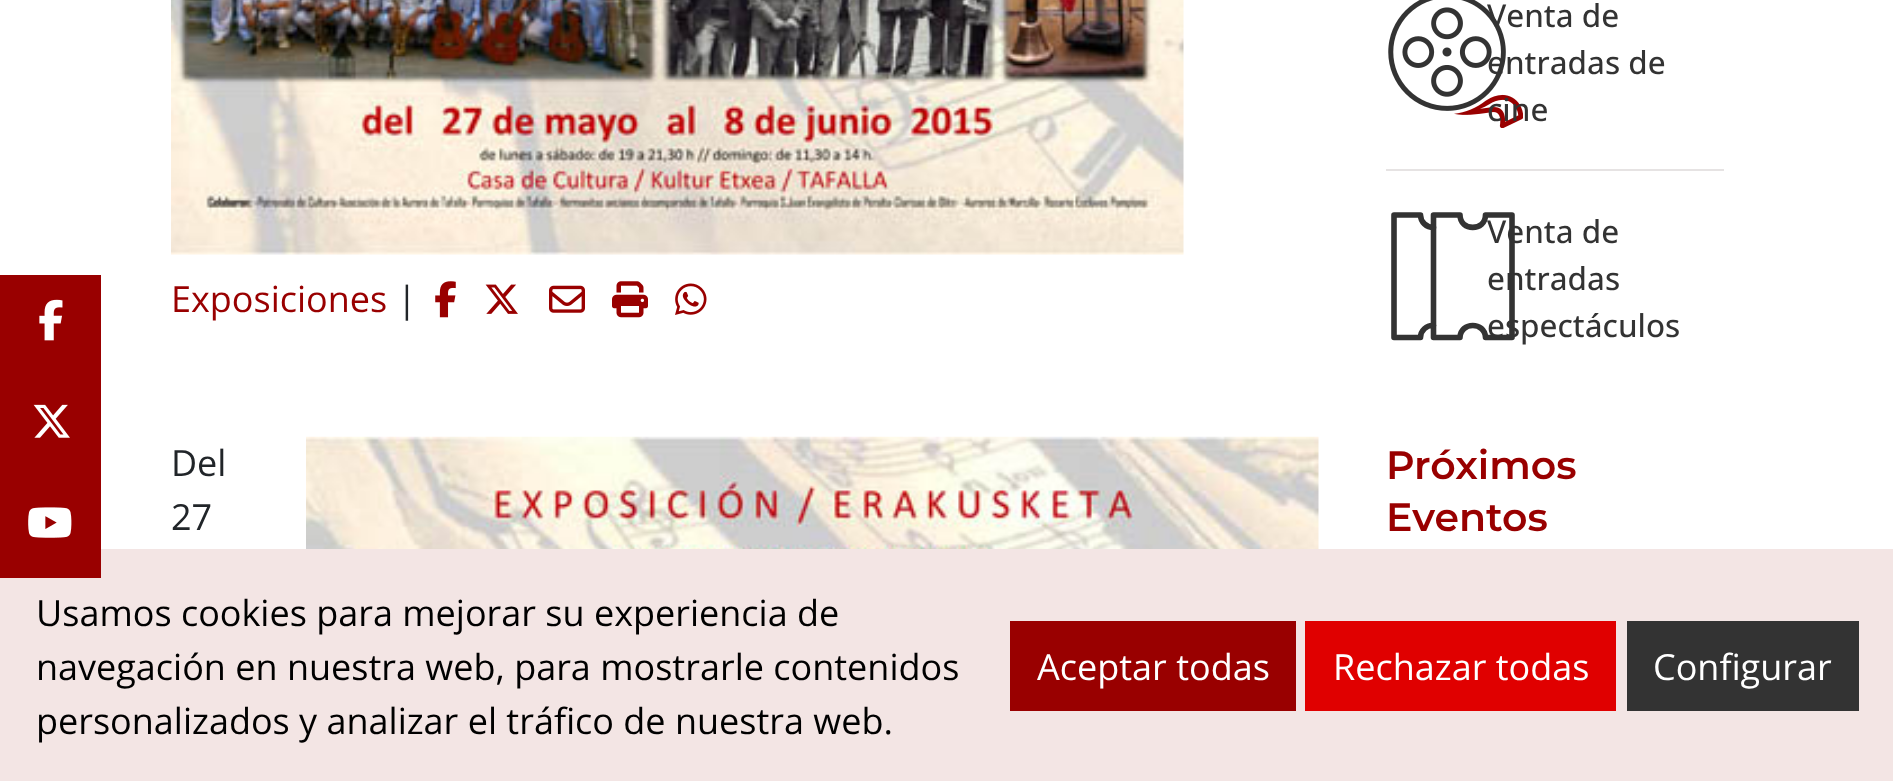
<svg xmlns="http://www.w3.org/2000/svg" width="1893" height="781">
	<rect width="100%" height="100%" fill="#FFFFFF" />
	<rect x="0" y="549" width="1893" height="232" fill="#F3E5E4" />
	<rect x="0" y="275" width="101" height="303" fill="#990000" />
	<image x="39" y="299" width="24" height="42" href="assets/img1.png" />
	<image x="33" y="404" width="37" height="34" href="assets/img2.png" />
	<image x="28" y="507" width="44" height="31" href="assets/img3.png" />
	<image x="171" y="0" width="1013" height="255" href="assets/img4.png" />
	<text x="171" y="312" font-family="Open Sans" font-size="36" fill="#990000">Exposiciones</text>
	<text x="397" y="312" font-family="Open Sans" font-size="36" fill="#212529">|</text>
	<image x="435" y="281" width="21" height="37" href="assets/img5.png" />
	<image x="485" y="284" width="33" height="30" href="assets/img6.png" />
	<image x="549" y="285" width="36" height="28" href="assets/img7.png" />
	<image x="612" y="281" width="36" height="37" href="assets/img8.png" />
	<image x="675" y="283" width="32" height="32" href="assets/img9.png" />
	<text x="171" y="476" font-family="Open Sans" font-size="36" fill="#212529">Del</text>
	<image x="306" y="436" width="1013" height="113" href="assets/img10.png" />
	<text x="171" y="530" font-family="Open Sans" font-size="36" fill="#212529">27</text>
	<image x="1388" y="0" width="135" height="128" href="assets/img11.png" />
	<g font-family="Open Sans" font-size="31.5" font-weight="500" fill="#333333">
		<text x="1487" y="27">Venta de</text>
		<text x="1487" y="74">entradas de</text>
		<text x="1487" y="121">cine</text>
	</g>
	<rect x="1386" y="169" width="338" height="2" fill="#E6E3E3" />
	<path d="M1512 337.5H1485.5C1485 321.5 1460.5 321.5 1460 337.5H1433.5V215H1460C1460 231.5 1485.5 231.5 1485.5 215H1512Z" fill="none" stroke="#333333" stroke-width="5.6" stroke-linecap="round" stroke-linejoin="round" />
	<path d="M1433.5 325.5C1426.5 325 1420.5 330.5 1420.5 337.5H1394V215H1420.5C1420.5 222 1426.5 227.5 1433.5 227.5" fill="none" stroke="#333333" stroke-width="5.6" stroke-linecap="round" stroke-linejoin="round" />
	<g font-family="Open Sans" font-size="31.5" font-weight="500" fill="#333333">
		<text x="1487" y="243">Venta de</text>
		<text x="1487" y="290">entradas</text>
		<text x="1487" y="337">espectáculos</text>
	</g>
	<g font-family="Montserrat" font-size="39.5" font-weight="600" fill="#990000">
		<text x="1386" y="479">Próximos</text>
		<text x="1386" y="531">Eventos</text>
	</g>
	<g font-family="Open Sans" font-size="36" fill="#000000">
		<text x="36" y="626">Usamos cookies para mejorar su experiencia de</text>
		<text x="36" y="680">navegación en nuestra web, para mostrarle contenidos</text>
		<text x="36" y="734">personalizados y analizar el tráfico de nuestra web.</text>
	</g>
	<rect x="1010" y="621" width="286" height="90" fill="#990000" />
	<text x="1037" y="680" font-family="Open Sans" font-size="36" fill="#FFFFFF">Aceptar todas</text>
	<rect x="1305" y="621" width="311" height="90" fill="#E00000" />
	<text x="1333" y="680" font-family="Open Sans" font-size="36" fill="#FFFFFF">Rechazar todas</text>
	<rect x="1627" y="621" width="232" height="90" fill="#333333" />
	<text x="1653" y="680" font-family="Open Sans" font-size="36" fill="#FFFFFF">Configurar</text>
</svg>
